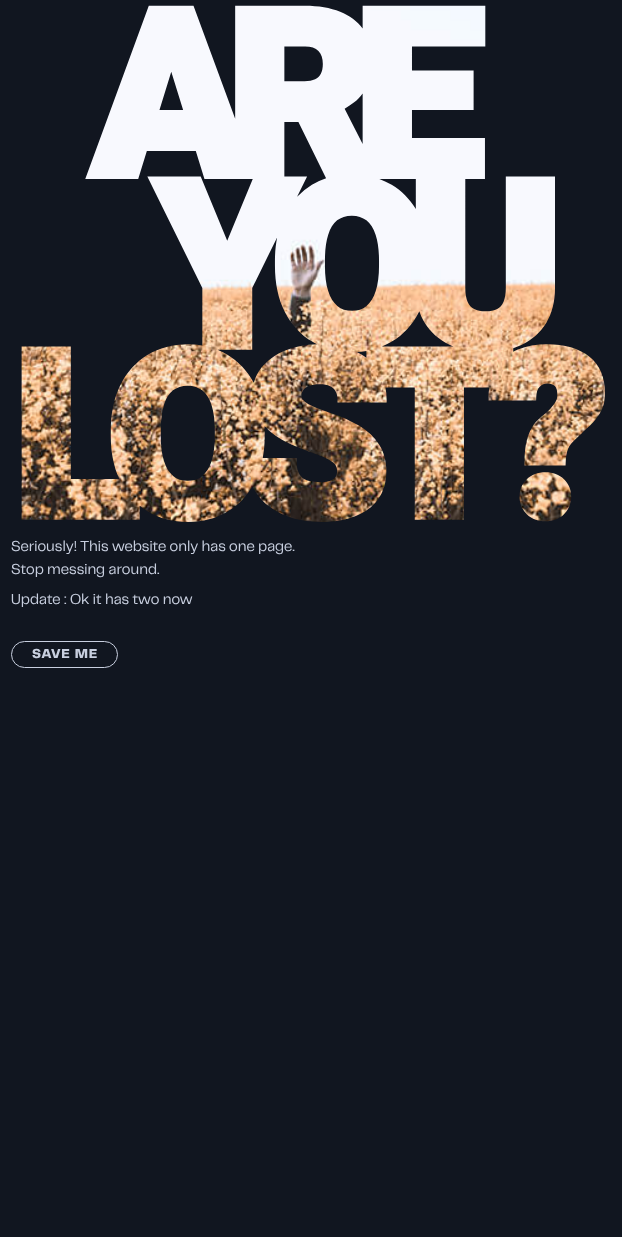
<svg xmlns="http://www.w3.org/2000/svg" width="622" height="1237">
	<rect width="100%" height="100%" fill="#111620" />
	<image x="21" y="5" width="584" height="517" href="assets/img1.png" />
	<g font-family="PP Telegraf" font-size="15" fill="#C8CFDF">
		<text x="11" y="551">Seriously! This website only has one page.</text>
		<text x="11" y="574">Stop messing around.</text>
		<text x="11" y="604">Update : Ok it has two now</text>
	</g>
	<rect x="11.5" y="641.5" width="106" height="26" rx="13" fill="none" stroke="#C8CFDF" />
	<text x="32" y="658" font-family="PP Telegraf" font-size="13.5" font-weight="800" letter-spacing="0.75" fill="#C8CFDF">SAVE ME</text>
</svg>
